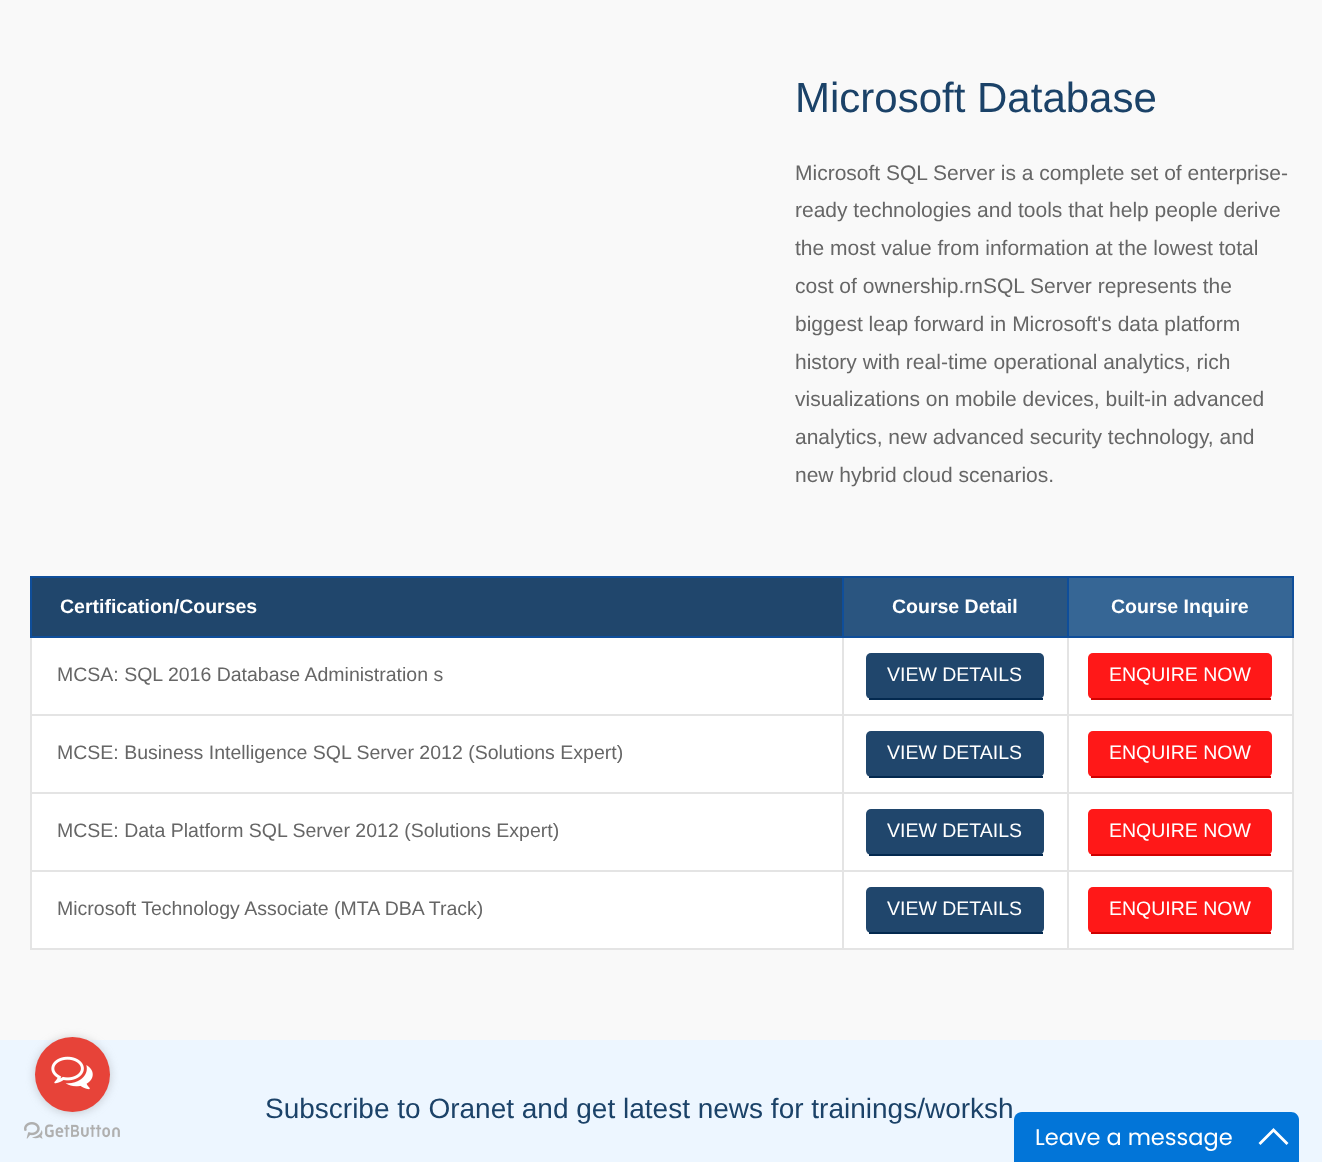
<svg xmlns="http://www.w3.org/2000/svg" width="1322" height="1162">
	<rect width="100%" height="100%" fill="#F9F9F9" />
	<text x="795" y="112" font-family="Liberation Sans" font-size="42" fill="#1B4268">Microsoft Database</text>
	<g font-family="Liberation Sans" font-size="21" fill="#666666">
		<text x="795" y="180">Microsoft SQL Server is a complete set of enterprise-</text>
		<text x="795" y="217">ready technologies and tools that help people derive</text>
		<text x="795" y="255">the most value from information at the lowest total</text>
		<text x="795" y="293">cost of ownership.rnSQL Server represents the</text>
		<text x="795" y="331">biggest leap forward in Microsoft's data platform</text>
		<text x="795" y="369">history with real-time operational analytics, rich</text>
		<text x="795" y="406">visualizations on mobile devices, built-in advanced</text>
		<text x="795" y="444">analytics, new advanced security technology, and</text>
		<text x="795" y="482">new hybrid cloud scenarios.</text>
	</g>
	<rect x="32" y="578" width="810" height="58" fill="#20466C" />
	<rect x="1067" y="576" width="226" height="2" fill="#0F4E9A" />
	<rect x="1067" y="714" width="226" height="2" fill="#E4E4E4" />
	<rect x="1067" y="792" width="226" height="2" fill="#E4E4E4" />
	<rect x="1067" y="870" width="226" height="2" fill="#E4E4E4" />
	<rect x="1292" y="870" width="2" height="80" fill="#E4E4E4" />
	<rect x="1292" y="792" width="2" height="80" fill="#E4E4E4" />
	<rect x="1292" y="636" width="2" height="158" fill="#E4E4E4" />
	<rect x="1292" y="576" width="2" height="62" fill="#0F4E9A" />
	<rect x="32" y="638" width="1260" height="76" fill="#FFFFFF" />
	<rect x="32" y="716" width="1260" height="76" fill="#FFFFFF" />
	<rect x="32" y="794" width="1260" height="76" fill="#FFFFFF" />
	<rect x="32" y="872" width="1260" height="76" fill="#FFFFFF" />
	<rect x="1067" y="948" width="226" height="2" fill="#E4E4E4" />
	<rect x="1067" y="870" width="2" height="80" fill="#E4E4E4" />
	<rect x="842" y="870" width="226" height="2" fill="#E4E4E4" />
	<rect x="1067" y="792" width="2" height="80" fill="#E4E4E4" />
	<rect x="842" y="792" width="226" height="2" fill="#E4E4E4" />
	<rect x="1067" y="714" width="2" height="80" fill="#E4E4E4" />
	<rect x="842" y="714" width="226" height="2" fill="#E4E4E4" />
	<rect x="1067" y="636" width="2" height="80" fill="#E4E4E4" />
	<rect x="1067" y="636" width="226" height="2" fill="#0F4E9A" />
	<rect x="1067" y="576" width="2" height="62" fill="#0F4E9A" />
	<rect x="842" y="576" width="226" height="2" fill="#0F4E9A" />
	<rect x="842" y="948" width="226" height="2" fill="#E4E4E4" />
	<rect x="842" y="870" width="2" height="80" fill="#E4E4E4" />
	<rect x="30" y="870" width="813" height="2" fill="#E4E4E4" />
	<rect x="842" y="792" width="2" height="80" fill="#E4E4E4" />
	<rect x="30" y="792" width="813" height="2" fill="#E4E4E4" />
	<rect x="842" y="714" width="2" height="80" fill="#E4E4E4" />
	<rect x="30" y="714" width="813" height="2" fill="#E4E4E4" />
	<rect x="842" y="636" width="2" height="80" fill="#E4E4E4" />
	<rect x="842" y="636" width="226" height="2" fill="#0F4E9A" />
	<rect x="842" y="576" width="2" height="62" fill="#0F4E9A" />
	<rect x="30" y="576" width="813" height="2" fill="#0F4E9A" />
	<rect x="30" y="948" width="813" height="2" fill="#E4E4E4" />
	<rect x="30" y="870" width="2" height="80" fill="#E4E4E4" />
	<rect x="30" y="792" width="2" height="80" fill="#E4E4E4" />
	<rect x="30" y="636" width="2" height="158" fill="#E4E4E4" />
	<rect x="30" y="636" width="813" height="2" fill="#0F4E9A" />
	<rect x="30" y="576" width="2" height="62" fill="#0F4E9A" />
	<text x="60" y="613" font-family="Liberation Sans" font-size="19.5" font-weight="700" fill="#FFFFFF">Certification/Courses</text>
	<rect x="844" y="578" width="223" height="58" fill="#2A5580" />
	<text x="892" y="613" font-family="Liberation Sans" font-size="19.5" font-weight="700" fill="#FFFFFF">Course Detail</text>
	<rect x="1069" y="578" width="223" height="58" fill="#366695" />
	<text x="1111" y="613" font-family="Liberation Sans" font-size="19.5" font-weight="700" fill="#FFFFFF">Course Inquire</text>
	<text x="57" y="681" font-family="Liberation Sans" font-size="19.5" fill="#666666">MCSA: SQL 2016 Database Administration s</text>
	<rect x="866" y="653" width="178" height="46" rx="5" fill="#20466C" />
	<rect x="869" y="698" width="174" height="2" fill="#03294F" />
	<text x="887" y="681" font-family="Liberation Sans" font-size="19.5" fill="#FFFFFF">VIEW DETAILS</text>
	<rect x="1088" y="653" width="184" height="46" rx="5" fill="#FF1818" />
	<rect x="1091" y="698" width="180" height="2" fill="#D00000" />
	<text x="1109" y="681" font-family="Liberation Sans" font-size="19.5" fill="#FFFFFF">ENQUIRE NOW</text>
	<text x="57" y="759" font-family="Liberation Sans" font-size="19.5" fill="#666666">MCSE: Business Intelligence SQL Server 2012 (Solutions Expert)</text>
	<rect x="866" y="731" width="178" height="46" rx="5" fill="#20466C" />
	<rect x="869" y="776" width="174" height="2" fill="#03294F" />
	<text x="887" y="759" font-family="Liberation Sans" font-size="19.5" fill="#FFFFFF">VIEW DETAILS</text>
	<rect x="1088" y="731" width="184" height="46" rx="5" fill="#FF1818" />
	<rect x="1091" y="776" width="180" height="2" fill="#D00000" />
	<text x="1109" y="759" font-family="Liberation Sans" font-size="19.5" fill="#FFFFFF">ENQUIRE NOW</text>
	<text x="57" y="837" font-family="Liberation Sans" font-size="19.5" fill="#666666">MCSE: Data Platform SQL Server 2012 (Solutions Expert)</text>
	<rect x="866" y="809" width="178" height="46" rx="5" fill="#20466C" />
	<rect x="869" y="854" width="174" height="2" fill="#03294F" />
	<text x="887" y="837" font-family="Liberation Sans" font-size="19.5" fill="#FFFFFF">VIEW DETAILS</text>
	<rect x="1088" y="809" width="184" height="46" rx="5" fill="#FF1818" />
	<rect x="1091" y="854" width="180" height="2" fill="#D00000" />
	<text x="1109" y="837" font-family="Liberation Sans" font-size="19.5" fill="#FFFFFF">ENQUIRE NOW</text>
	<text x="57" y="915" font-family="Liberation Sans" font-size="19.5" fill="#666666">Microsoft Technology Associate (MTA DBA Track)</text>
	<rect x="866" y="887" width="178" height="46" rx="5" fill="#20466C" />
	<rect x="869" y="932" width="174" height="2" fill="#03294F" />
	<text x="887" y="915" font-family="Liberation Sans" font-size="19.5" fill="#FFFFFF">VIEW DETAILS</text>
	<rect x="1088" y="887" width="184" height="46" rx="5" fill="#FF1818" />
	<rect x="1091" y="932" width="180" height="2" fill="#D00000" />
	<text x="1109" y="915" font-family="Liberation Sans" font-size="19.5" fill="#FFFFFF">ENQUIRE NOW</text>
	<rect x="0" y="1040" width="1322" height="122" fill="#EDF6FF" />
	<text x="265" y="1118" font-family="Liberation Sans" font-size="28" fill="#1B4268">Subscribe to Oranet and get latest news for trainings/worksh</text>
	<image x="24" y="1122" width="96" height="17" href="assets/img2.png" />
	<rect x="35" y="1038" width="75" height="75" rx="37.5" fill="#888888" fill-opacity="0.4" filter="blur(5px)" />
	<circle cx="72.5" cy="1074.5" r="37.5" fill="#E74339" />
	<image x="51" y="1056" width="42" height="34" href="assets/img1.png" />
	<path d="M1022 1112H1291C1295.5 1112 1299 1115.5 1299 1120V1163H1014V1120C1014 1115.5 1017.5 1112 1022 1112Z" fill="#0275D8" />
	<text x="1035" y="1145" font-family="Poppins" font-size="22.5" fill="#FFFFFF">Leave a message</text>
	<path d="M1273.5 1128L1288.5 1143L1286.5 1145L1273.5 1132L1260.5 1145L1258.5 1143Z" fill="#FFFFFF" />
</svg>
